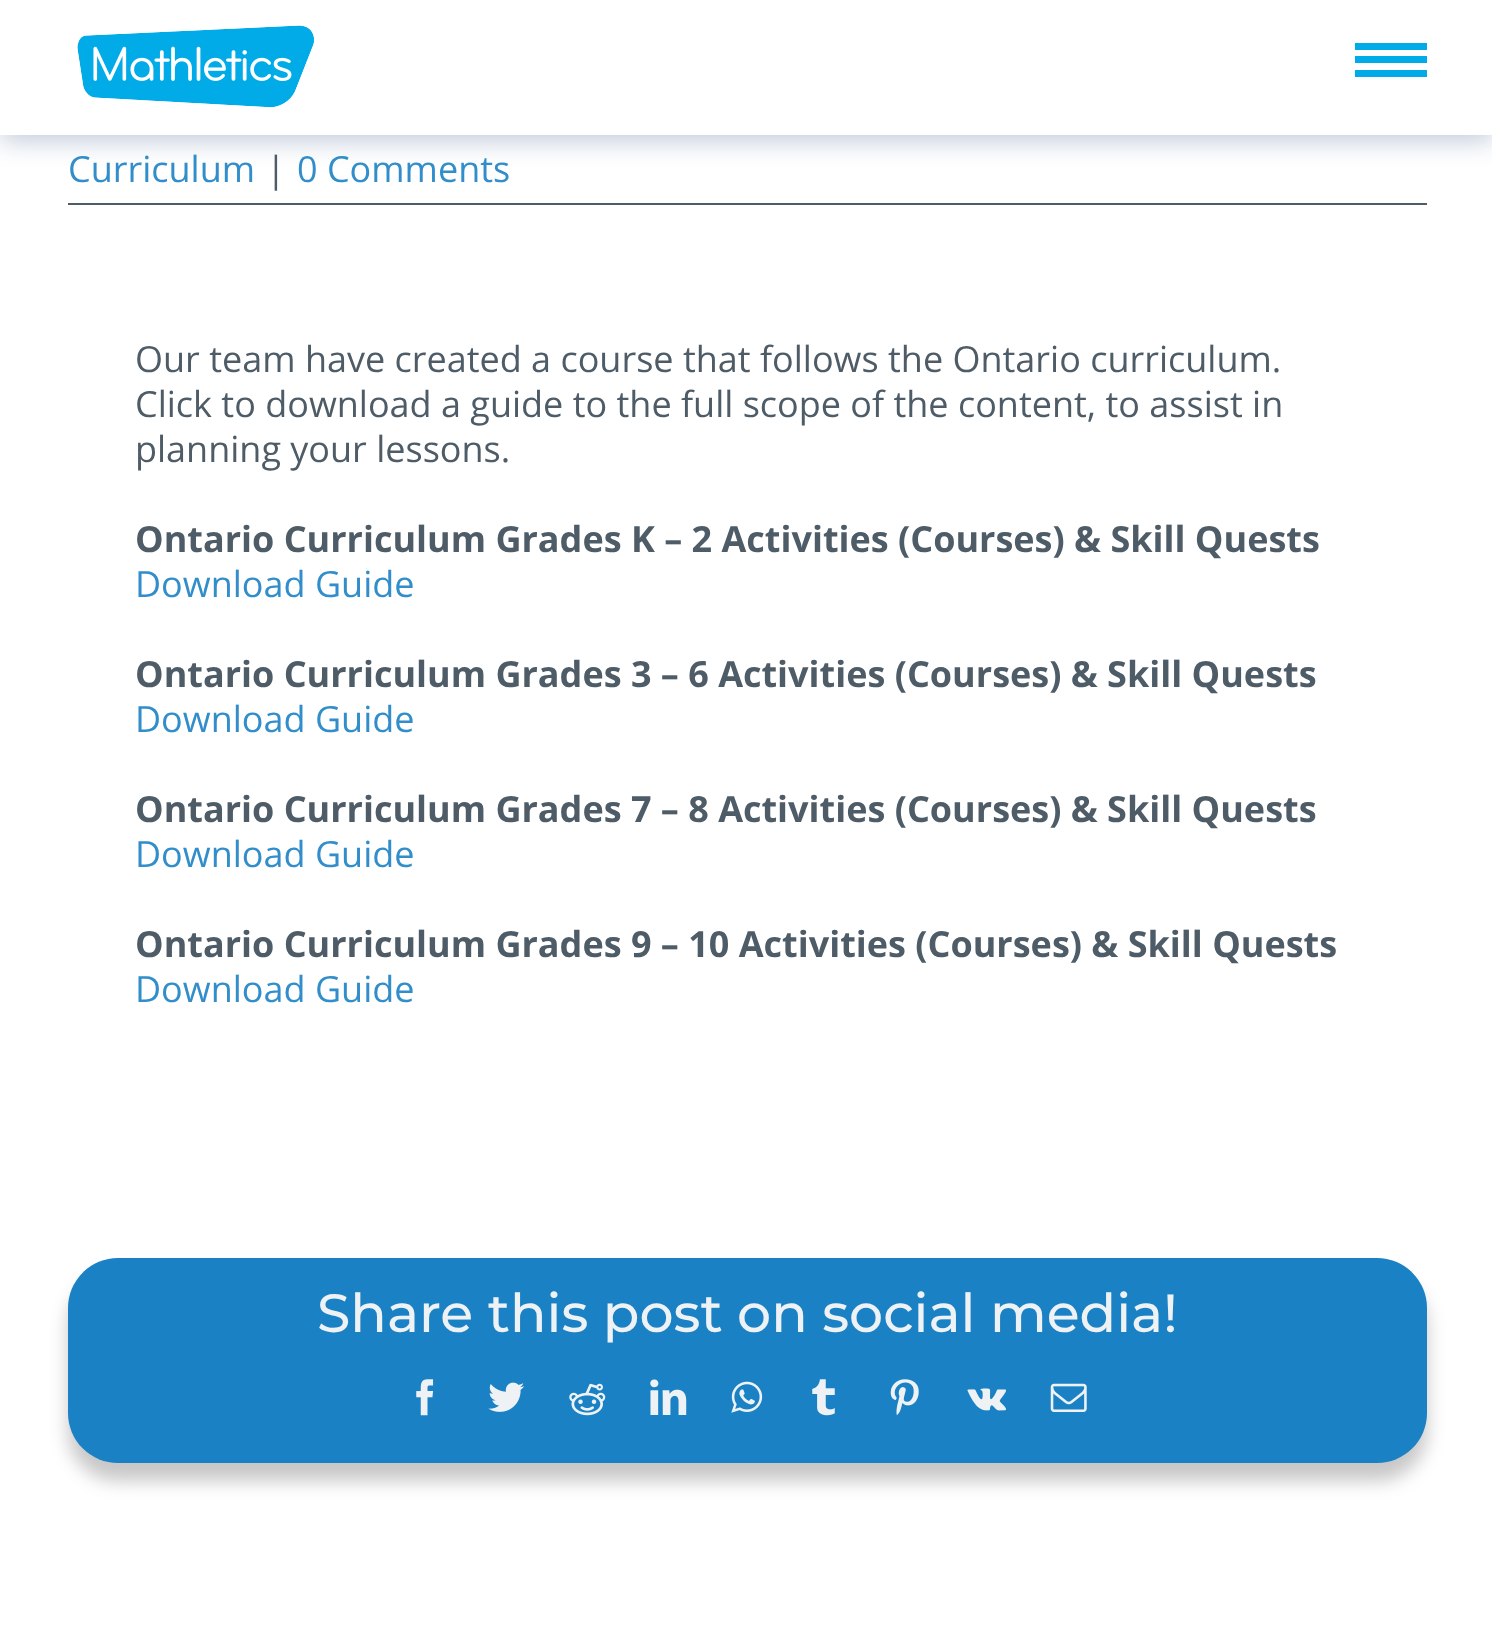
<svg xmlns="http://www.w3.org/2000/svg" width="1492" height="1636">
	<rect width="100%" height="100%" fill="#FFFFFF" />
	<rect x="0" y="5" width="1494" height="135" fill="#052C69" fill-opacity="0.26" filter="blur(13.5px)" />
	<rect x="0" y="0" width="1492" height="135" fill="#FFFFFF" />
	<image x="77" y="25" width="237" height="83" href="assets/img1.png" />
	<rect x="1355" y="43" width="72" height="7" fill="#00ABE8" />
	<rect x="1355" y="56" width="72" height="7" fill="#00ABE8" />
	<rect x="1355" y="70" width="72" height="7" fill="#00ABE8" />
	<rect x="68" y="203" width="1359" height="2" fill="#4E5C67" />
	<text x="68" y="182" font-family="Open Sans" font-size="36" fill="#318ECA">Curriculum</text>
	<text x="266" y="182" font-family="Open Sans" font-size="36" fill="#4E5C67">|</text>
	<text x="297" y="182" font-family="Open Sans" font-size="36" fill="#318ECA">0 Comments</text>
	<g font-family="Open Sans" font-size="36" fill="#4E5C67">
		<text x="135" y="372">Our team have created a course that follows the Ontario curriculum.</text>
		<text x="135" y="417">Click to download a guide to the full scope of the content, to assist in</text>
		<text x="135" y="462">planning your lessons.</text>
	</g>
	<text x="135" y="552" font-family="Open Sans" font-size="36" font-weight="700" fill="#4E5C67">Ontario Curriculum Grades K – 2 Activities (Courses) &amp; Skill Quests</text>
	<text x="135" y="597" font-family="Open Sans" font-size="36" fill="#318ECA">Download Guide</text>
	<text x="135" y="687" font-family="Open Sans" font-size="36" font-weight="700" fill="#4E5C67">Ontario Curriculum Grades 3 – 6 Activities (Courses) &amp; Skill Quests</text>
	<text x="135" y="732" font-family="Open Sans" font-size="36" fill="#318ECA">Download Guide</text>
	<text x="135" y="822" font-family="Open Sans" font-size="36" font-weight="700" fill="#4E5C67">Ontario Curriculum Grades 7 – 8 Activities (Courses) &amp; Skill Quests</text>
	<text x="135" y="867" font-family="Open Sans" font-size="36" fill="#318ECA">Download Guide</text>
	<text x="135" y="957" font-family="Open Sans" font-size="36" font-weight="700" fill="#4E5C67">Ontario Curriculum Grades 9 – 10 Activities (Courses) &amp; Skill Quests</text>
	<text x="135" y="1002" font-family="Open Sans" font-size="36" fill="#318ECA">Download Guide</text>
	<rect x="68" y="1276" width="1359" height="205" rx="50" fill="#000000" fill-opacity="0.22" filter="blur(9px)" />
	<rect x="68" y="1258" width="1359" height="205" rx="50" fill="#1981C4" />
	<text x="317" y="1332" font-family="Montserrat" font-size="53.7" font-weight="500" fill="#EEF2F5">Share this post on social media!</text>
	<image x="416" y="1379" width="18" height="37" href="assets/img2.png" />
	<image x="488" y="1382" width="37" height="30" href="assets/img3.png" />
	<image x="569" y="1383" width="37" height="33" href="assets/img4.png" />
	<image x="650" y="1379" width="37" height="36" href="assets/img5.png" />
	<image x="731" y="1381" width="32" height="32" href="assets/img6.png" />
	<image x="812" y="1379" width="23" height="37" href="assets/img7.png" />
	<image x="890" y="1379" width="29" height="37" href="assets/img8.png" />
	<image x="967" y="1388" width="39" height="23" href="assets/img9.png" />
	<image x="1050" y="1383" width="37" height="29" href="assets/img10.png" />
</svg>
